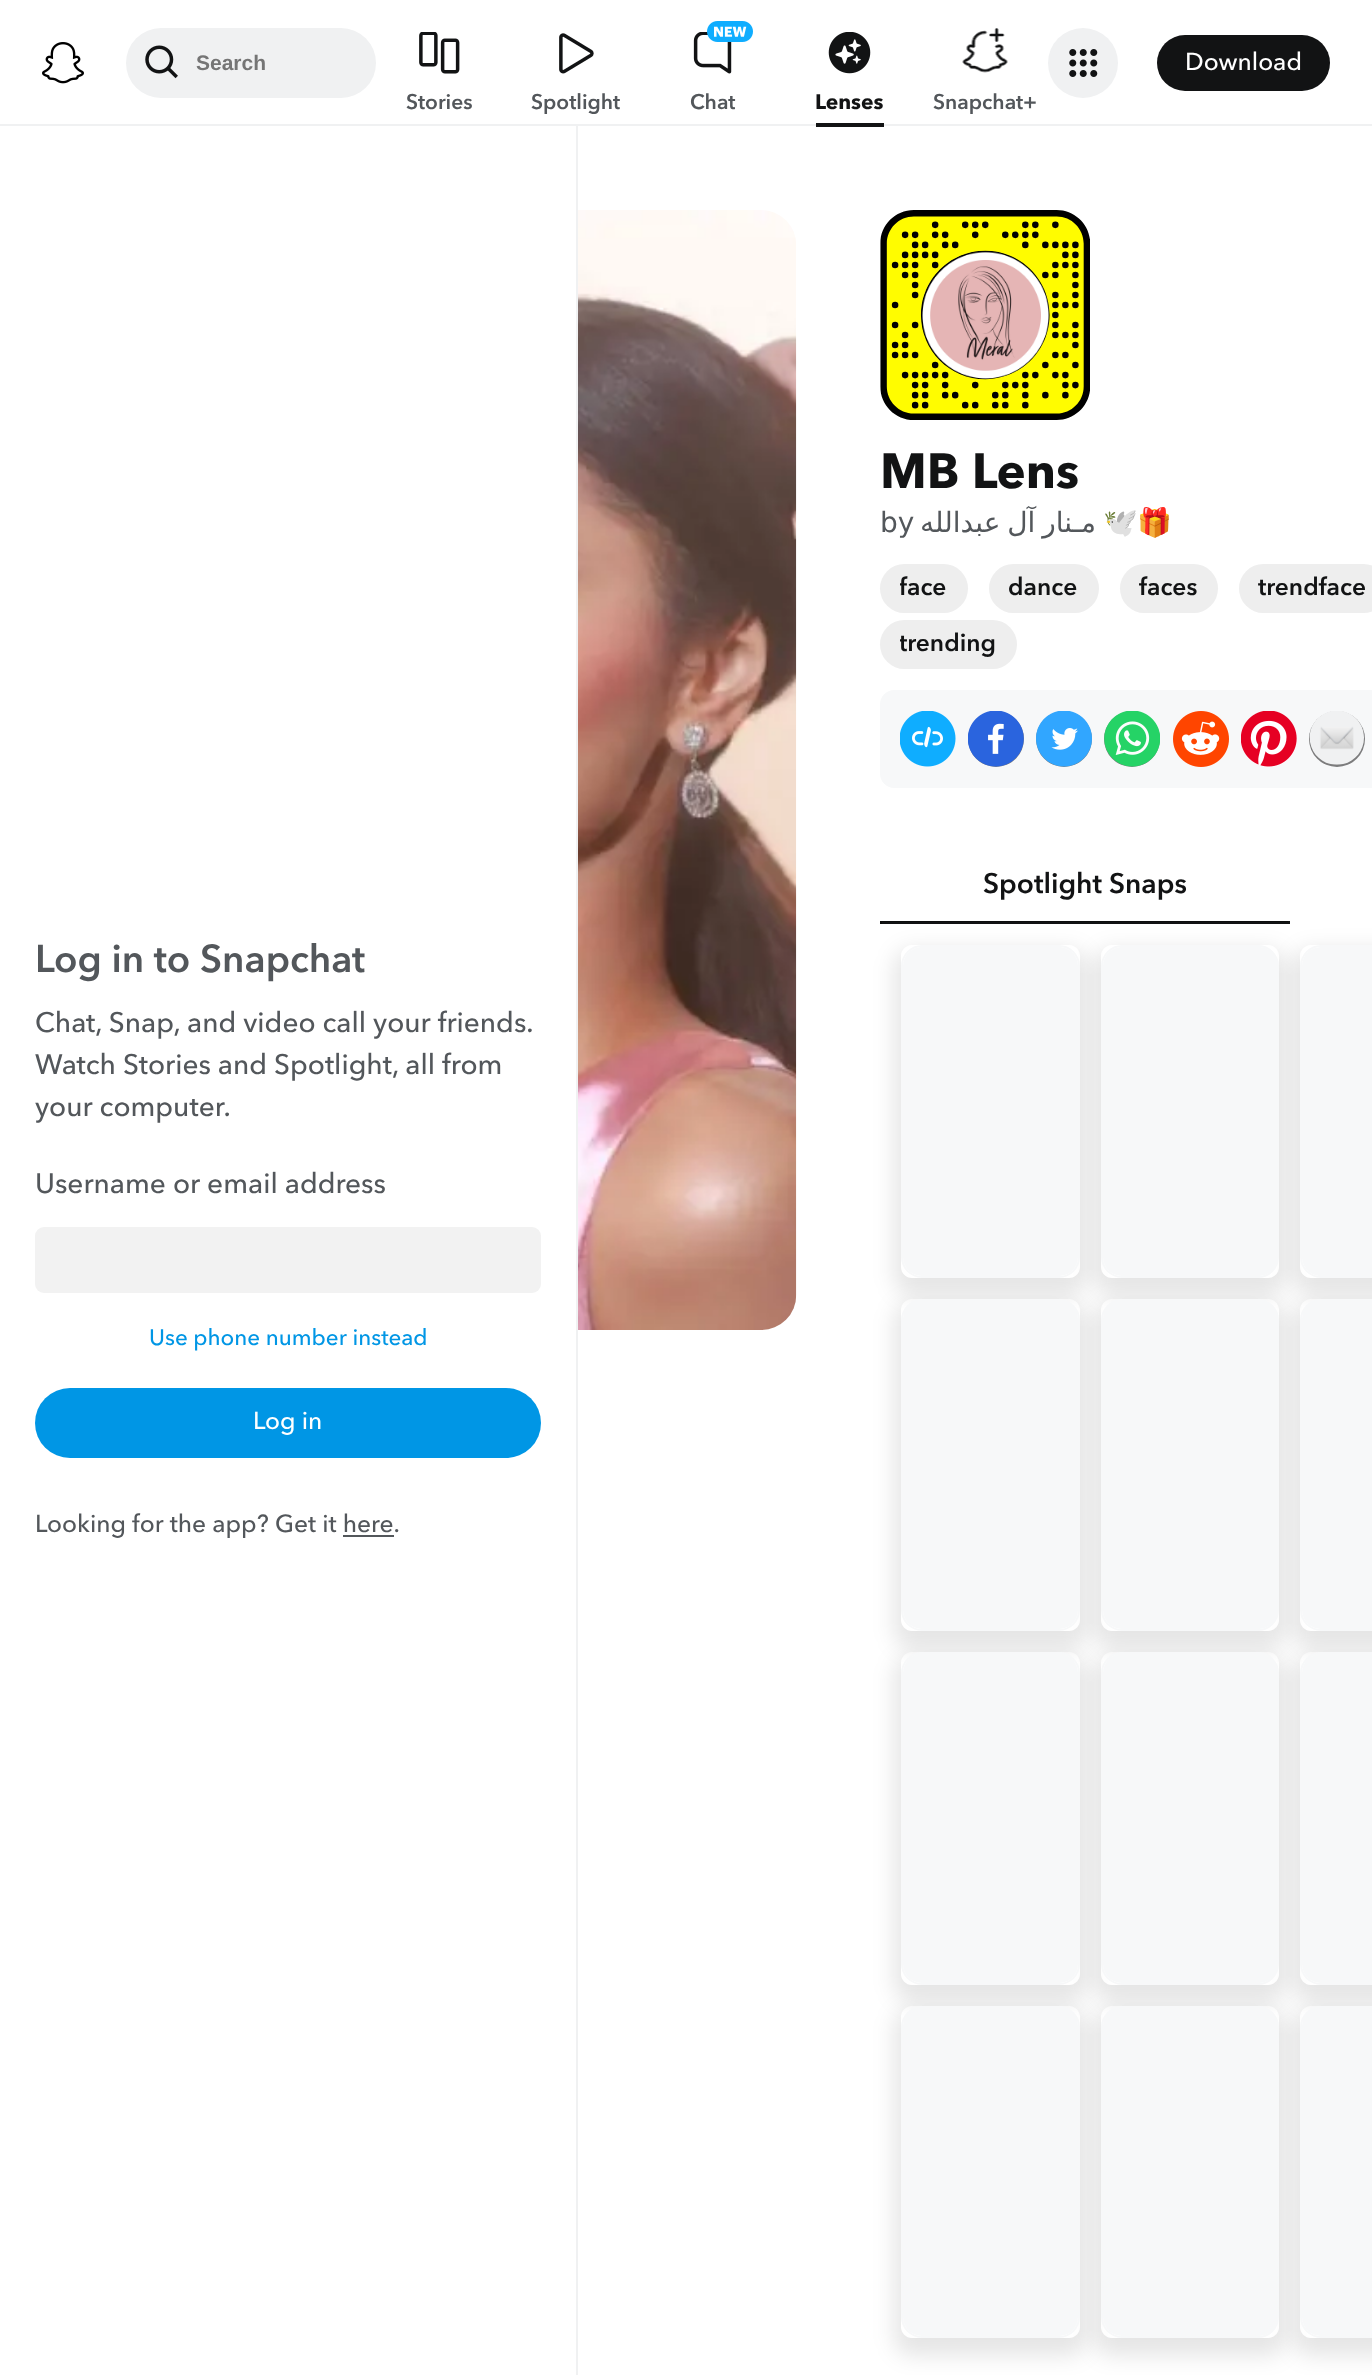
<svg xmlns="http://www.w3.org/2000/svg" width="1372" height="2375">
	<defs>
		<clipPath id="clip1"><rect x="900" y="571" width="47" height="35" /></clipPath>
		<clipPath id="clip2"><rect x="1139" y="571" width="58" height="35" /></clipPath>
		<clipPath id="clip3"><rect x="900" y="627" width="96" height="35" /></clipPath>
		<clipPath id="clip4"><path d="M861 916H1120V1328H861ZM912 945H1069C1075 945 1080 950 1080 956V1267C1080 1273 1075 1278 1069 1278H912C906 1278 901 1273 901 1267V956C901 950 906 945 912 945Z" clip-rule="evenodd" /></clipPath>
		<clipPath id="clip5"><path d="M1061 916H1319V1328H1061ZM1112 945H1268C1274 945 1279 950 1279 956V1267C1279 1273 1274 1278 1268 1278H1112C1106 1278 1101 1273 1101 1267V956C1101 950 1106 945 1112 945Z" clip-rule="evenodd" /></clipPath>
		<clipPath id="clip6"><path d="M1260 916H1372V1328H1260ZM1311 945H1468C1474 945 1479 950 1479 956V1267C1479 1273 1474 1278 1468 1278H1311C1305 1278 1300 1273 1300 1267V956C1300 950 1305 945 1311 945Z" clip-rule="evenodd" /></clipPath>
		<clipPath id="clip7"><path d="M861 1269H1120V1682H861ZM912 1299H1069C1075 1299 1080 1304 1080 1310V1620C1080 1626 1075 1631 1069 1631H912C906 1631 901 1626 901 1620V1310C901 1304 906 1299 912 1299Z" clip-rule="evenodd" /></clipPath>
		<clipPath id="clip8"><path d="M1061 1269H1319V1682H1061ZM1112 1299H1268C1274 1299 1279 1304 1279 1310V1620C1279 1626 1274 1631 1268 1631H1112C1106 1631 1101 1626 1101 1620V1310C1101 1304 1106 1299 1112 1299Z" clip-rule="evenodd" /></clipPath>
		<clipPath id="clip9"><path d="M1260 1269H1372V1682H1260ZM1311 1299H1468C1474 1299 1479 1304 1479 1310V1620C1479 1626 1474 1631 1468 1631H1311C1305 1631 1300 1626 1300 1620V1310C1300 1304 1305 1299 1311 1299Z" clip-rule="evenodd" /></clipPath>
		<clipPath id="clip10"><path d="M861 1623H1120V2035H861ZM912 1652H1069C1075 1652 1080 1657 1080 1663V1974C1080 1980 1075 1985 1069 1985H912C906 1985 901 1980 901 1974V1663C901 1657 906 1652 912 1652Z" clip-rule="evenodd" /></clipPath>
		<clipPath id="clip11"><path d="M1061 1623H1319V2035H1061ZM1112 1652H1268C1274 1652 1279 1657 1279 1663V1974C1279 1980 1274 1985 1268 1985H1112C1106 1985 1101 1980 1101 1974V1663C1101 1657 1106 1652 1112 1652Z" clip-rule="evenodd" /></clipPath>
		<clipPath id="clip12"><path d="M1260 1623H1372V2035H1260ZM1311 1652H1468C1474 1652 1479 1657 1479 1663V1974C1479 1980 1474 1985 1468 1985H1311C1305 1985 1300 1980 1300 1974V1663C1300 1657 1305 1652 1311 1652Z" clip-rule="evenodd" /></clipPath>
		<clipPath id="clip13"><path d="M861 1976H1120V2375H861ZM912 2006H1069C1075 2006 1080 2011 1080 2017V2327C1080 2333 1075 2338 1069 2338H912C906 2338 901 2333 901 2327V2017C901 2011 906 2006 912 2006Z" clip-rule="evenodd" /></clipPath>
		<clipPath id="clip14"><path d="M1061 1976H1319V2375H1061ZM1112 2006H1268C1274 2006 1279 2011 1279 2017V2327C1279 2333 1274 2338 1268 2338H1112C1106 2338 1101 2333 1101 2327V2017C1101 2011 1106 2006 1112 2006Z" clip-rule="evenodd" /></clipPath>
		<clipPath id="clip15"><path d="M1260 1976H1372V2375H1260ZM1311 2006H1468C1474 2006 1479 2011 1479 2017V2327C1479 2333 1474 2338 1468 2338H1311C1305 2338 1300 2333 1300 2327V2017C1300 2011 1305 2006 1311 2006Z" clip-rule="evenodd" /></clipPath>
	</defs>
	<rect width="100%" height="100%" fill="#FFFFFF" />
	<rect x="0" y="124" width="1372" height="2" fill="#F0F1F2" />
	<image x="42" y="42" width="42" height="42" href="assets/img1.png" />
	<rect x="126" y="28" width="250" height="70" rx="35" fill="#F0F1F2" />
	<image x="145" y="45" width="33" height="34" href="assets/img2.png" />
	<text x="196" y="70" font-family="Liberation Sans" font-size="21" font-weight="700" fill="#757575">Search</text>
	<circle cx="1083" cy="63" r="35" fill="#F0F1F2" />
	<image x="1069" y="49" width="29" height="28" href="assets/img3.png" />
	<rect x="1157" y="35" width="173" height="56" rx="28" fill="#121314" />
	<text x="1185" y="70" font-family="Avenir Next" font-size="24.5" font-weight="500" fill="#FFFFFF">Download</text>
	<image x="419" y="32" width="41" height="42" href="assets/img4.png" />
	<text x="406" y="109" font-family="Avenir Next" font-size="21" font-weight="600" fill="#53575B">Stories</text>
	<image x="559" y="33" width="35" height="41" href="assets/img5.png" />
	<text x="531" y="109" font-family="Avenir Next" font-size="21" font-weight="600" fill="#53575B">Spotlight</text>
	<image x="693" y="32" width="39" height="42" href="assets/img7.png" />
	<image x="707" y="21" width="46" height="21" href="assets/img6.png" />
	<text x="690" y="109" font-family="Avenir Next" font-size="21" font-weight="600" fill="#53575B">Chat</text>
	<image x="828" y="32" width="43" height="42" href="assets/img8.png" />
	<rect x="816" y="123" width="68" height="4" fill="#121314" />
	<text x="815" y="109" font-family="Avenir Next" font-size="21" font-weight="700" fill="#121314">Lenses</text>
	<image x="962" y="28" width="46" height="45" href="assets/img9.png" />
	<text x="933" y="109" font-family="Avenir Next" font-size="21" font-weight="600" fill="#53575B">Snapchat+</text>
	<image x="578" y="210" width="219" height="1120" href="assets/img10.png" />
	<image x="880" y="210" width="210" height="210" href="assets/img11.png" />
	<text x="880" y="488" font-family="Avenir Next" font-size="49" font-weight="700" fill="#121314">MB Lens</text>
	<text x="880" y="532" font-family="DejaVu Sans" font-size="28" fill="#53575B">by</text>
	<text x="1096" y="532" word-spacing="-2" font-family="DejaVu Sans" font-size="28" direction="rtl" fill="#53575B">مـنار آل عبدالله</text>
	<text x="1103" y="532" font-family="Noto Color Emoji" font-size="28" fill="#53575B">🕊🎁</text>
	<rect x="880" y="564" width="88" height="49" rx="24.5" fill="#EEEEEE" />
	<g clip-path="url(#clip1)">
		<text x="899" y="595" font-family="Avenir Next" font-size="24.5" font-weight="600" fill="#121314">face</text>
	</g>
	<rect x="989" y="564" width="110" height="49" rx="24.5" fill="#EEEEEE" />
	<text x="1008" y="595" font-family="Avenir Next" font-size="24.5" font-weight="600" fill="#121314">dance</text>
	<rect x="1120" y="564" width="98" height="49" rx="24.5" fill="#EEEEEE" />
	<g clip-path="url(#clip2)">
		<text x="1139" y="595" font-family="Avenir Next" font-size="24.5" font-weight="600" fill="#121314">faces</text>
	</g>
	<rect x="1239" y="564" width="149" height="49" rx="24.5" fill="#EEEEEE" />
	<text x="1258" y="595" font-family="Avenir Next" font-size="24.5" font-weight="600" fill="#121314">trendface</text>
	<rect x="880" y="620" width="137" height="49" rx="24.5" fill="#EEEEEE" />
	<g clip-path="url(#clip3)">
		<text x="899" y="651" font-family="Avenir Next" font-size="24.5" font-weight="600" fill="#121314">trending</text>
	</g>
	<path d="M894 690H1372V788H894C886.5 788 880 781.5 880 774V704C880 696.5 886.5 690 894 690Z" fill="#F7F8F9" />
	<image x="900" y="711" width="56" height="56" href="assets/img12.png" />
	<circle cx="996" cy="739" r="28" fill="#7C7C7D" />
	<image x="968" y="711" width="56" height="56" href="assets/img13.png" />
	<circle cx="1064" cy="739" r="28" fill="#7C7C7D" />
	<image x="1036" y="711" width="56" height="56" href="assets/img14.png" />
	<circle cx="1132" cy="739" r="28" fill="#7C7C7D" />
	<image x="1104" y="711" width="56" height="56" href="assets/img15.png" />
	<image x="1173" y="711" width="56" height="56" href="assets/img16.png" />
	<image x="1241" y="711" width="56" height="56" href="assets/img17.png" />
	<circle cx="1337" cy="739" r="28" fill="#7C7C7D" />
	<image x="1309" y="711" width="55" height="54" href="assets/img18.png" />
	<text x="983" y="893" font-family="Avenir Next" font-size="28" font-weight="600" fill="#121314">Spotlight Snaps</text>
	<g clip-path="url(#clip4)">
		<rect x="894" y="949" width="193" height="346" rx="18" fill="#000000" fill-opacity="0.1" filter="blur(10.5px)" />
	</g>
	<g clip-path="url(#clip5)">
		<rect x="1094" y="949" width="192" height="346" rx="18" fill="#000000" fill-opacity="0.1" filter="blur(10.5px)" />
	</g>
	<g clip-path="url(#clip6)">
		<rect x="1293" y="949" width="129" height="346" rx="18" fill="#000000" fill-opacity="0.1" filter="blur(10.5px)" />
	</g>
	<rect x="880" y="921" width="410" height="1" fill="#0C0D0D" />
	<rect x="1288" y="921" width="2" height="3" fill="#121314" />
	<rect x="880" y="922" width="410" height="2" fill="#121314" />
	<rect x="880" y="921" width="2" height="3" fill="#0C0D0D" />
	<g clip-path="url(#clip7)">
		<rect x="894" y="1302" width="193" height="347" rx="18" fill="#000000" fill-opacity="0.1" filter="blur(10.5px)" />
	</g>
	<g clip-path="url(#clip8)">
		<rect x="1094" y="1302" width="192" height="347" rx="18" fill="#000000" fill-opacity="0.1" filter="blur(10.5px)" />
	</g>
	<rect x="902" y="946" width="177" height="331" rx="20" fill="none" stroke="#F7F8F9" stroke-width="2" />
	<rect x="903" y="947" width="175" height="329" rx="19" fill="#F7F8F9" />
	<g clip-path="url(#clip9)">
		<rect x="1293" y="1302" width="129" height="347" rx="18" fill="#000000" fill-opacity="0.1" filter="blur(10.5px)" />
	</g>
	<rect x="1102" y="946" width="176" height="331" rx="20" fill="none" stroke="#F7F8F9" stroke-width="2" />
	<rect x="1103" y="947" width="175" height="329" rx="19" fill="#F7F8F9" />
	<rect x="1301" y="946" width="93" height="331" rx="20" fill="none" stroke="#F7F8F9" stroke-width="2" />
	<path d="M1321 947H1372V1276H1321C1310.5 1276 1302 1267.5 1302 1257V966C1302 955.5 1310.5 947 1321 947Z" fill="#F7F8F9" />
	<g clip-path="url(#clip10)">
		<rect x="894" y="1656" width="193" height="346" rx="18" fill="#000000" fill-opacity="0.1" filter="blur(10.5px)" />
	</g>
	<g clip-path="url(#clip11)">
		<rect x="1094" y="1656" width="192" height="346" rx="18" fill="#000000" fill-opacity="0.1" filter="blur(10.5px)" />
	</g>
	<rect x="902" y="1300" width="177" height="330" rx="20" fill="none" stroke="#F7F8F9" stroke-width="2" />
	<rect x="903" y="1300" width="175" height="329" rx="19" fill="#F7F8F9" />
	<g clip-path="url(#clip12)">
		<rect x="1293" y="1656" width="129" height="346" rx="18" fill="#000000" fill-opacity="0.1" filter="blur(10.5px)" />
	</g>
	<rect x="1102" y="1300" width="176" height="330" rx="20" fill="none" stroke="#F7F8F9" stroke-width="2" />
	<rect x="1103" y="1300" width="175" height="329" rx="19" fill="#F7F8F9" />
	<rect x="1301" y="1300" width="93" height="330" rx="20" fill="none" stroke="#F7F8F9" stroke-width="2" />
	<path d="M1321 1300H1372V1629H1321C1310.5 1629 1302 1620.5 1302 1610V1319C1302 1308.5 1310.5 1300 1321 1300Z" fill="#F7F8F9" />
	<g clip-path="url(#clip13)">
		<rect x="894" y="2009" width="193" height="347" rx="18" fill="#000000" fill-opacity="0.1" filter="blur(10.5px)" />
	</g>
	<g clip-path="url(#clip14)">
		<rect x="1094" y="2009" width="192" height="347" rx="18" fill="#000000" fill-opacity="0.1" filter="blur(10.5px)" />
	</g>
	<rect x="902" y="1653" width="177" height="331" rx="20" fill="none" stroke="#F7F8F9" stroke-width="2" />
	<rect x="903" y="1654" width="175" height="329" rx="19" fill="#F7F8F9" />
	<g clip-path="url(#clip15)">
		<rect x="1293" y="2009" width="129" height="347" rx="18" fill="#000000" fill-opacity="0.1" filter="blur(10.5px)" />
	</g>
	<rect x="1102" y="1653" width="176" height="331" rx="20" fill="none" stroke="#F7F8F9" stroke-width="2" />
	<rect x="1103" y="1654" width="175" height="329" rx="19" fill="#F7F8F9" />
	<rect x="1301" y="1653" width="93" height="331" rx="20" fill="none" stroke="#F7F8F9" stroke-width="2" />
	<path d="M1321 1654H1372V1983H1321C1310.5 1983 1302 1974.5 1302 1964V1673C1302 1662.5 1310.5 1654 1321 1654Z" fill="#F7F8F9" />
	<rect x="902" y="2007" width="177" height="330" rx="20" fill="none" stroke="#F7F8F9" stroke-width="2" />
	<rect x="903" y="2007" width="175" height="329" rx="19" fill="#F7F8F9" />
	<rect x="1102" y="2007" width="176" height="330" rx="20" fill="none" stroke="#F7F8F9" stroke-width="2" />
	<rect x="1103" y="2007" width="175" height="329" rx="19" fill="#F7F8F9" />
	<rect x="1301" y="2007" width="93" height="330" rx="20" fill="none" stroke="#F7F8F9" stroke-width="2" />
	<path d="M1321 2007H1372V2336H1321C1310.5 2336 1302 2327.5 1302 2317V2026C1302 2015.5 1310.5 2007 1321 2007Z" fill="#F7F8F9" />
	<rect x="576" y="126" width="2" height="2249" fill="#F0F1F2" />
	<text x="35" y="972" font-family="Avenir Next" font-size="38.5" font-weight="600" fill="#53575B">Log in to Snapchat</text>
	<g font-family="Avenir Next" font-size="28" font-weight="500" fill="#53575B">
		<text x="35" y="1032">Chat, Snap, and video call your friends.</text>
		<text x="35" y="1074">Watch Stories and Spotlight, all from</text>
		<text x="35" y="1116">your computer.</text>
		<text x="35" y="1193">Username or email address</text>
	</g>
	<rect x="35" y="1227" width="506" height="66" rx="9" fill="#F2F2F2" />
	<text x="149" y="1345" font-family="Avenir Next" font-size="22.4" font-weight="500" fill="#0096E5">Use phone number instead</text>
	<rect x="35" y="1388" width="506" height="70" rx="35" fill="#0096E5" />
	<text x="253" y="1429" font-family="Avenir Next" font-size="24.5" font-weight="500" fill="#FFFFFF">Log in</text>
	<text x="35" y="1532" font-family="Avenir Next" font-size="24.5" font-weight="500" fill="#53575B">Looking for the app? Get it here.</text>
	<rect x="343" y="1535" width="51" height="2" fill="#53575B" />
</svg>
